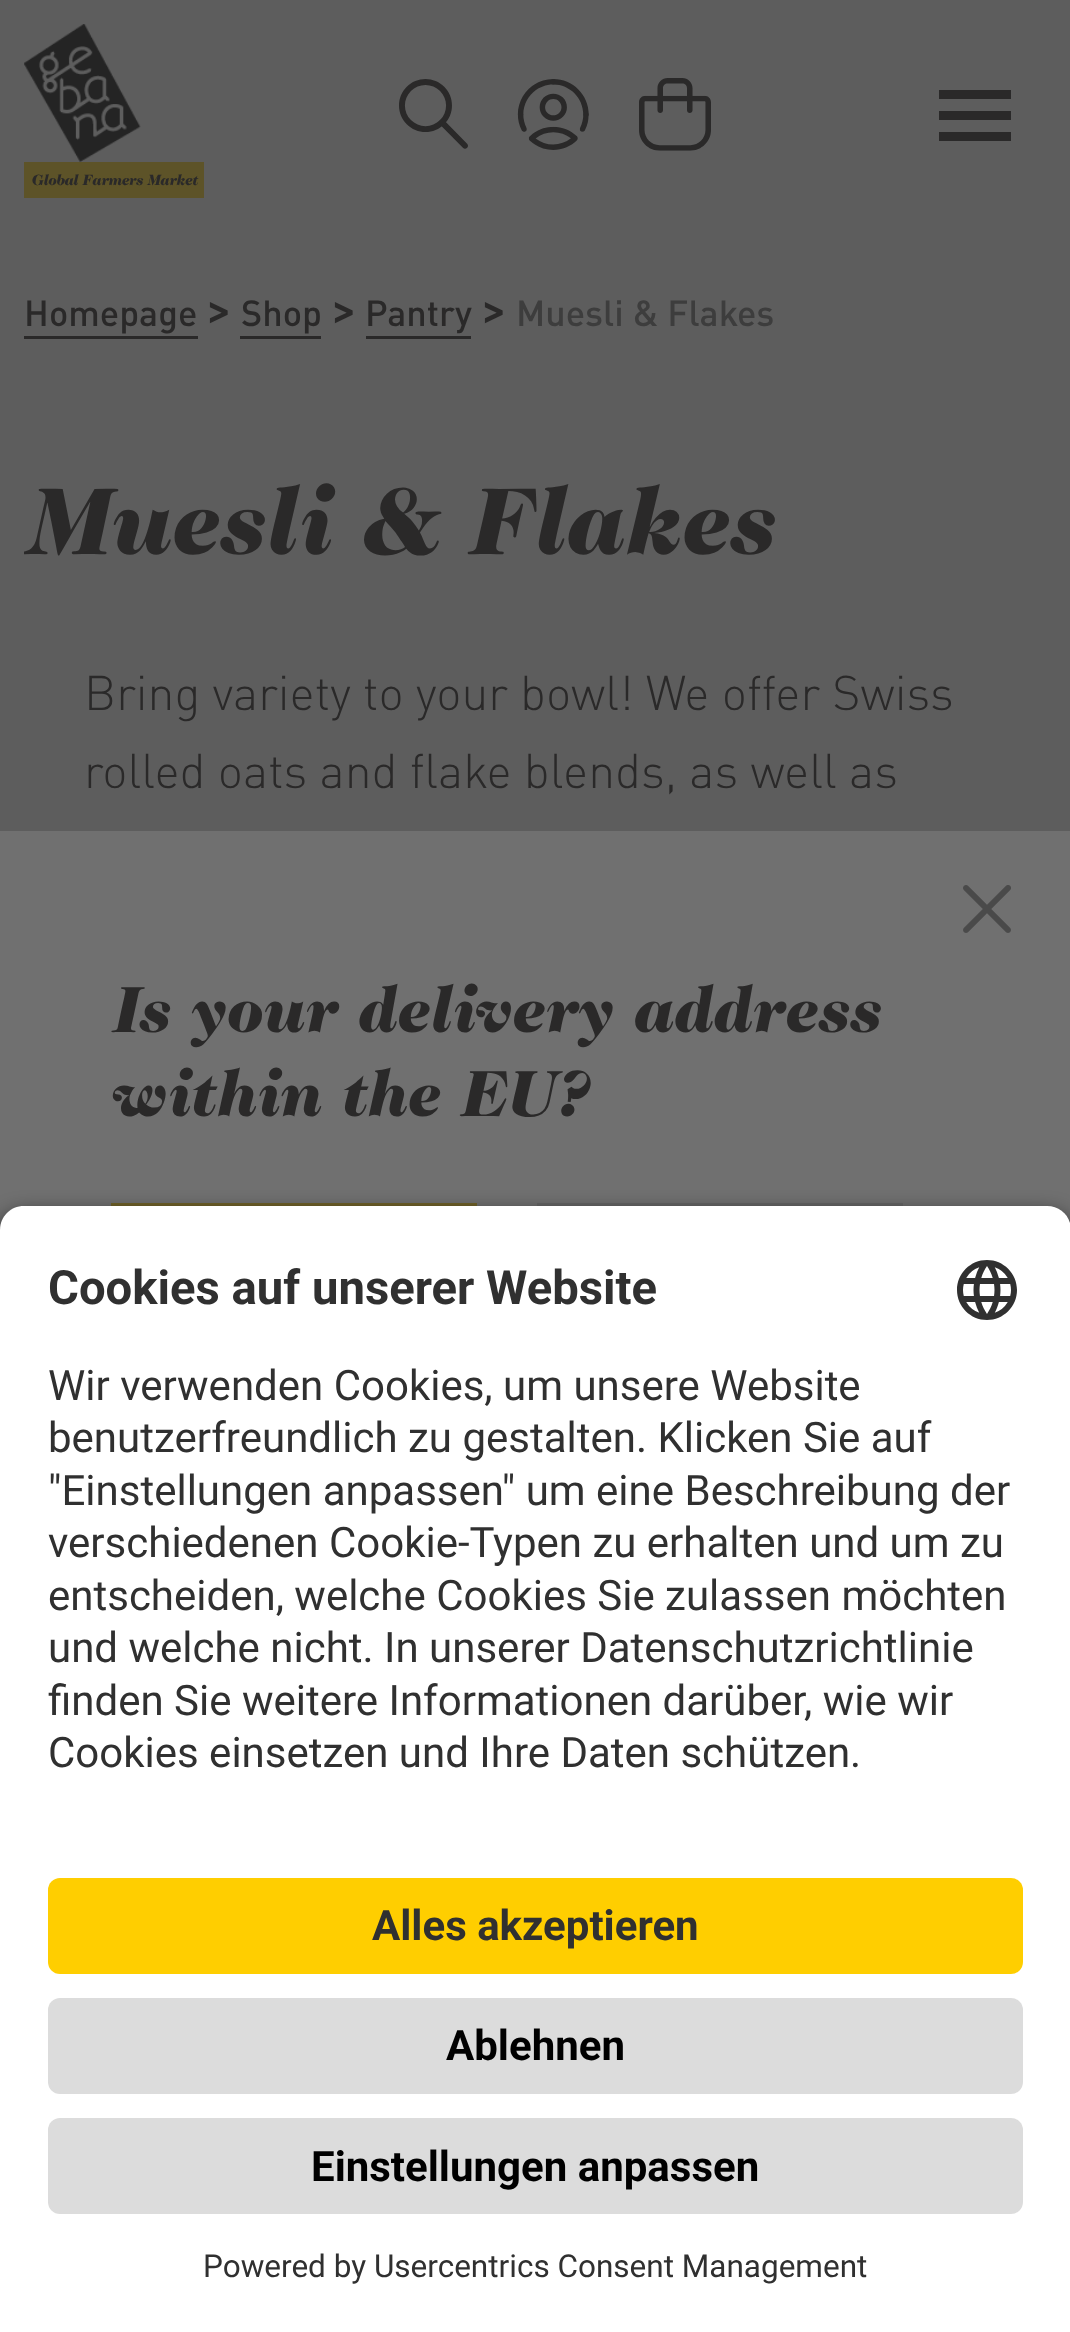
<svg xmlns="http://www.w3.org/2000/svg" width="1070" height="2332">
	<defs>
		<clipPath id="clip1"><rect x="24" y="414" width="1023" height="180" /></clipPath>
	</defs>
	<rect width="100%" height="100%" fill="#5D5D5D" />
	<image x="399" y="79" width="69" height="70" href="assets/img1.png" />
	<image x="517" y="79" width="72" height="71" href="assets/img2.png" />
	<image x="639" y="78" width="72" height="73" href="assets/img3.png" />
	<rect x="939" y="90" width="72" height="9" fill="#2A2929" />
	<rect x="939" y="111" width="72" height="9" fill="#2A2929" />
	<rect x="939" y="132" width="72" height="9" fill="#2A2929" />
	<image x="24" y="24" width="117" height="138" href="assets/img4.png" />
	<rect x="24" y="162" width="180" height="36" fill="#5D5328" />
	<text x="31" y="185" font-family="'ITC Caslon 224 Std'" font-size="15" font-weight="900" font-style="italic" letter-spacing="-0.3" fill="#2A2929">Global Farmers Market</text>
	<text x="24" y="326" font-family="DIN" font-size="36" font-weight="500" fill="#2A2929">Homepage</text>
	<rect x="24" y="336" width="174" height="3" fill="#2A2929" />
	<text x="206" y="326" font-family="DIN" font-size="48" font-weight="500" fill="#2A2929">&gt;</text>
	<text x="241" y="326" font-family="DIN" font-size="36" font-weight="500" fill="#2A2929">Shop</text>
	<rect x="240" y="336" width="81" height="3" fill="#2A2929" />
	<text x="331" y="326" font-family="DIN" font-size="48" font-weight="500" fill="#2A2929">&gt;</text>
	<text x="365" y="326" font-family="DIN" font-size="36" font-weight="500" fill="#2A2929">Pantry</text>
	<rect x="366" y="336" width="105" height="3" fill="#2A2929" />
	<text x="481" y="326" font-family="DIN" font-size="48" font-weight="500" fill="#2A2929">&gt;</text>
	<text x="516" y="326" font-family="DIN" font-size="36" font-weight="500" fill="#3D3D3D">Muesli &amp; Flakes</text>
	<g clip-path="url(#clip1)">
		<text x="24" y="554" font-family="'ITC Caslon 224 Std'" font-size="96" font-weight="900" font-style="italic" fill="#2A2929">Muesli &amp; Flakes</text>
	</g>
	<g font-family="DIN" font-size="48" font-weight="300" fill="#2A2929">
		<text x="84" y="710">Bring variety to your bowl! We offer Swiss</text>
		<text x="84" y="788">rolled oats and flake blends, as well as</text>
	</g>
	<rect x="0" y="831" width="1070" height="399" fill="#707070" />
	<image x="963" y="885" width="48" height="48" href="assets/img5.png" />
	<g font-family="'ITC Caslon 224 Std'" font-size="66" font-weight="900" font-style="italic" fill="#2A2929">
		<text x="111" y="1032">Is your delivery address</text>
		<text x="111" y="1116">within the EU?</text>
	</g>
	<rect x="111" y="1203" width="366" height="3" fill="#706229" />
	<rect x="537" y="1203" width="366" height="3" fill="#666666" />
	<rect x="0" y="1215" width="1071" height="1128" rx="24" fill="#000000" fill-opacity="0.8" filter="blur(10.5px)" />
	<path d="M24 1206H1047C1060.5 1206 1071 1216.5 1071 1230V1842H0V1230C0 1216.5 10.5 1206 24 1206Z" fill="#FFFFFF" />
	<text x="48" y="1304" font-family="Roboto" font-size="47.25" font-weight="700" fill="#303030">Cookies auf unserer Website</text>
	<image x="957" y="1260" width="60" height="60" href="assets/img6.png" />
	<g font-family="Roboto" font-size="42" fill="#303030">
		<text x="48" y="1400">Wir verwenden Cookies, um unsere Website</text>
		<text x="48" y="1452">benutzerfreundlich zu gestalten. Klicken Sie auf</text>
		<text x="48" y="1505">"Einstellungen anpassen" um eine Beschreibung der</text>
		<text x="48" y="1557">verschiedenen Cookie-Typen zu erhalten und um zu</text>
		<text x="48" y="1610">entscheiden, welche Cookies Sie zulassen möchten</text>
		<text x="48" y="1662">und welche nicht. In unserer Datenschutzrichtlinie</text>
		<text x="48" y="1715">finden Sie weitere Informationen darüber, wie wir</text>
		<text x="48" y="1767">Cookies einsetzen und Ihre Daten schützen.</text>
	</g>
	<rect x="0" y="1842" width="1070" height="490" fill="#FFFFFF" />
	<rect x="48" y="1878" width="975" height="96" rx="12" fill="#FFCE00" />
	<text x="372" y="1940" font-family="Roboto" font-size="42" font-weight="700" fill="#303030">Alles akzeptieren</text>
	<rect x="48" y="1998" width="975" height="96" rx="12" fill="#DCDCDC" />
	<text x="446" y="2060" font-family="Roboto" font-size="42" font-weight="700" fill="#000000">Ablehnen</text>
	<rect x="48" y="2118" width="975" height="96" rx="12" fill="#DCDCDC" />
	<text x="311" y="2181" font-family="Roboto" font-size="42" font-weight="700" fill="#000000">Einstellungen anpassen</text>
	<text x="203" y="2277" font-family="Roboto" font-size="31.5" fill="#303030">Powered by Usercentrics Consent Management</text>
</svg>
